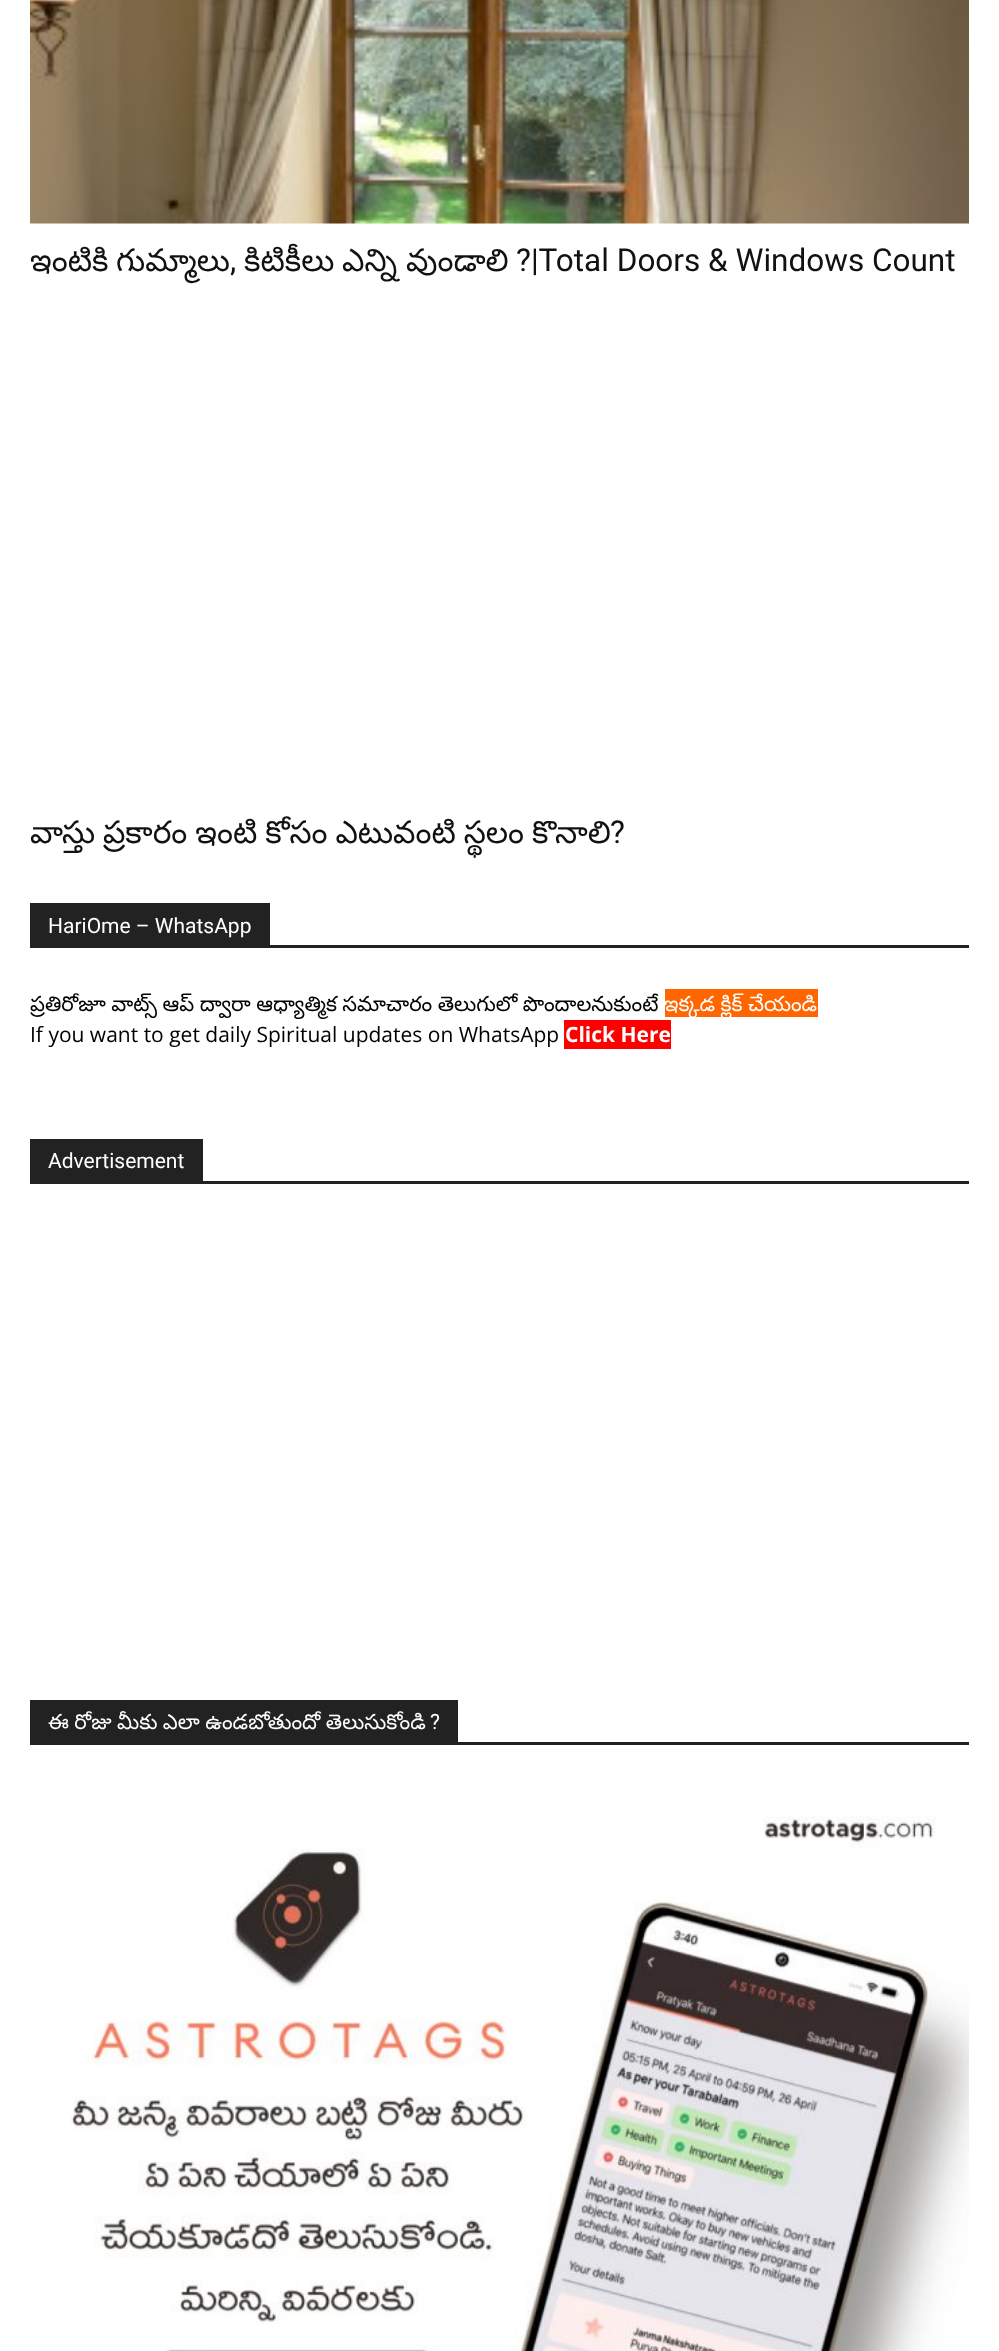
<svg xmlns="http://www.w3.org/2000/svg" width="999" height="2351">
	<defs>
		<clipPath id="clip1"><rect x="30" y="903" width="939" height="179" /></clipPath>
	</defs>
	<rect width="100%" height="100%" fill="#FFFFFF" />
	<image x="30" y="0" width="939" height="224" href="assets/img1.png" />
	<g font-family="Noto Sans Telugu" font-size="31.5" fill="#111111">
		<text x="30" y="271">ఇంటికి</text>
		<text x="116" y="271">గుమ్మాలు</text>
	</g>
	<text x="230" y="271" font-family="Roboto" font-size="31.5" fill="#111111">,</text>
	<g font-family="Noto Sans Telugu" font-size="31.5" fill="#111111">
		<text x="244" y="271">కిటికీలు</text>
		<text x="342" y="271">ఎన్ని</text>
		<text x="406" y="271">వుండాలి</text>
	</g>
	<text x="516" y="271" font-family="Roboto" font-size="31.5" fill="#111111">?|Total Doors &amp; Windows Count</text>
	<text x="30" y="843" word-spacing="-1" font-family="Noto Sans Telugu" font-size="31.5" fill="#111111">వాస్తు ప్రకారం ఇంటి కోసం ఎటువంటి స్థలం కొనాలి</text>
	<text x="610" y="843" font-family="Roboto" font-size="31.5" fill="#111111">?</text>
	<rect x="30" y="945" width="939" height="3" fill="#222222" />
	<rect x="30" y="903" width="240" height="42" fill="#222222" />
	<text x="48" y="933" font-family="Roboto" font-size="21" fill="#FFFFFF">HariOme – WhatsApp</text>
	<g clip-path="url(#clip1)">
		<text x="30" y="1011" word-spacing="-0.5" font-family="Noto Sans Telugu" font-size="21" fill="#000000">ప్రతిరోజూ వాట్స్ ఆప్ ద్వారా ఆధ్యాత్మిక సమాచారం తెలుగులో పొందాలనుకుంటే</text>
	</g>
	<rect x="665" y="989" width="153" height="28" fill="#FF6600" />
	<text x="664" y="1011" word-spacing="-0.5" font-family="Noto Sans Telugu" font-size="21" fill="#FFFFFF">ఇక్కడ క్లిక్ చేయండి</text>
	<text x="30" y="1042" font-family="Open Sans" font-size="21" fill="#000000">If you want to get daily Spiritual updates on WhatsApp</text>
	<rect x="564" y="1020" width="107" height="29" fill="#FF0000" />
	<text x="565" y="1042" font-family="Open Sans" font-size="21" font-weight="700" fill="#FFFFFF">Click Here</text>
	<rect x="30" y="1181" width="939" height="3" fill="#222222" />
	<rect x="30" y="1139" width="173" height="42" fill="#222222" />
	<text x="48" y="1168" font-family="Roboto" font-size="21" fill="#FFFFFF">Advertisement</text>
	<rect x="30" y="1742" width="939" height="3" fill="#222222" />
	<rect x="30" y="1700" width="428" height="42" fill="#222222" />
	<text x="48" y="1729" word-spacing="-0.5" font-family="Noto Sans Telugu" font-size="21" fill="#FFFFFF">ఈ రోజు మీకు ఎలా ఉండబోతుందో తెలుసుకోండి</text>
	<text x="430" y="1729" font-family="Roboto" font-size="21" fill="#FFFFFF">?</text>
	<image x="71" y="1816" width="898" height="535" href="assets/img2.png" />
</svg>
